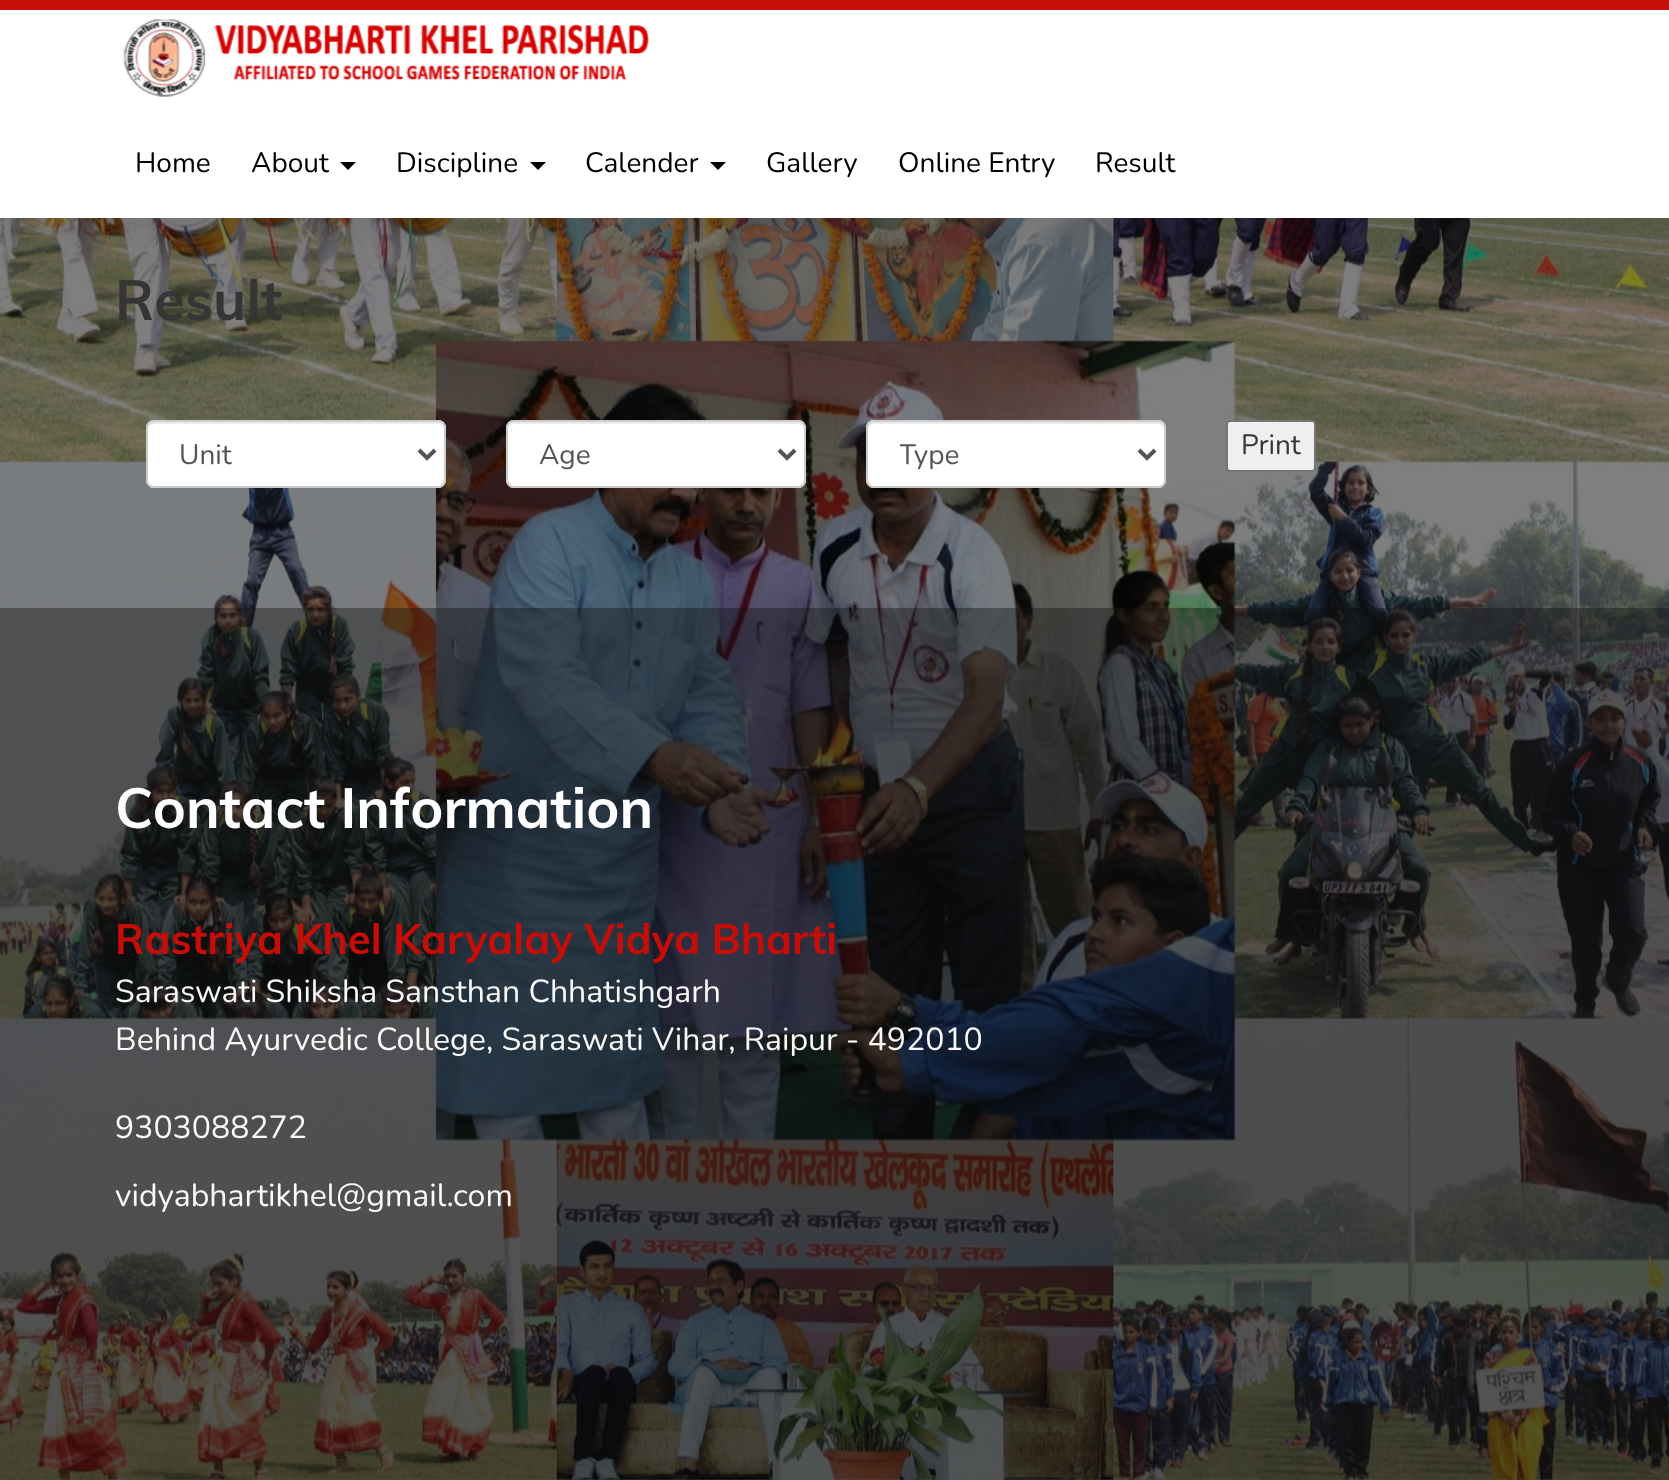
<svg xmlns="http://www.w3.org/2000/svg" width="1669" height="1480">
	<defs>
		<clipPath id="clip1"><rect x="900" y="434" width="208" height="42" /></clipPath>
	</defs>
	<rect width="100%" height="100%" fill="#FFFFFF" />
	<image x="0" y="218" width="1669" height="1262" href="assets/img2.png" />
	<rect x="0" y="218" width="1669" height="390" fill="#000000" fill-opacity="0.5" />
	<rect x="0" y="2" width="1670" height="218" fill="#000000" fill-opacity="0.1" filter="blur(30px)" />
	<rect x="0" y="10" width="1669" height="208" fill="#FFFFFF" />
	<rect x="0" y="0" width="1669" height="10" fill="#C70D08" />
	<image x="123" y="19" width="526" height="78" href="assets/img1.png" />
	<g font-family="Nunito" font-size="28" font-weight="200" fill="#000000">
		<text x="135" y="172">Home</text>
		<text x="251" y="172">About</text>
	</g>
	<path d="M340 162H356L348 170Z" fill="#000000" />
	<text x="396" y="172" font-family="Nunito" font-size="28" font-weight="200" fill="#000000">Discipline</text>
	<path d="M530 162H546L538 170Z" fill="#000000" />
	<text x="585" y="172" font-family="Nunito" font-size="28" font-weight="200" fill="#000000">Calender</text>
	<path d="M710 162H726L718 170Z" fill="#000000" />
	<g font-family="Nunito" font-size="28" font-weight="200" fill="#000000">
		<text x="766" y="172">Gallery</text>
		<text x="898" y="172">Online Entry</text>
		<text x="1095" y="172">Result</text>
	</g>
	<text x="115" y="320" font-family="Muli" font-size="56" font-weight="700" fill="#353535">Result</text>
	<rect x="146" y="420" width="300" height="68" rx="8" fill="#FFFFFF" />
	<path d="M154 424H438C441 424 444 427 444 430V428C444 425 441 422 438 422H154C151 422 148 425 148 428V430C148 427 151 424 154 424Z" fill="#ECECEC" />
	<rect x="147" y="421" width="298" height="66" rx="7" fill="none" stroke="#CCCCCC" stroke-width="2" />
	<path d="M419 450L427 458L435 450" fill="none" stroke="#555555" stroke-width="4" />
	<text x="179" y="464" font-family="Nunito" font-size="28" font-weight="200" fill="#555555">Unit</text>
	<rect x="506" y="420" width="300" height="68" rx="8" fill="#FFFFFF" />
	<path d="M514 424H798C801 424 804 427 804 430V428C804 425 801 422 798 422H514C511 422 508 425 508 428V430C508 427 511 424 514 424Z" fill="#ECECEC" />
	<rect x="507" y="421" width="298" height="66" rx="7" fill="none" stroke="#CCCCCC" stroke-width="2" />
	<path d="M779 450L787 458L795 450" fill="none" stroke="#555555" stroke-width="4" />
	<text x="539" y="464" font-family="Nunito" font-size="28" font-weight="200" fill="#555555">Age</text>
	<rect x="866" y="420" width="300" height="68" rx="8" fill="#FFFFFF" />
	<path d="M874 424H1158C1161 424 1164 427 1164 430V428C1164 425 1161 422 1158 422H874C871 422 868 425 868 428V430C868 427 871 424 874 424Z" fill="#ECECEC" />
	<rect x="867" y="421" width="298" height="66" rx="7" fill="none" stroke="#CCCCCC" stroke-width="2" />
	<path d="M1139 450L1147 458L1155 450" fill="none" stroke="#555555" stroke-width="4" />
	<g clip-path="url(#clip1)">
		<text x="899" y="464" font-family="Nunito" font-size="28" font-weight="200" fill="#555555">Type</text>
	</g>
	<rect x="1227" y="421" width="88" height="50" rx="3" fill="#EFEFEF" stroke="#767676" stroke-width="2" />
	<text x="1241" y="454" font-family="Nunito" font-size="28" font-weight="200" fill="#353535">Print</text>
	<rect x="0" y="608" width="1669" height="872" fill="#0A0A0A" fill-opacity="0.7" />
	<text x="115" y="828" font-family="Muli" font-size="56" font-weight="700" fill="#FFFFFF">Contact Information</text>
	<text x="115" y="954" font-family="Muli" font-size="42" font-weight="700" fill="#C70D08">Rastriya Khel Karyalay Vidya Bharti</text>
	<g font-family="Nunito" font-size="32" font-weight="200" fill="#F9F9F9">
		<text x="115" y="1002">Saraswati Shiksha Sansthan Chhatishgarh</text>
		<text x="115" y="1050">Behind Ayurvedic College, Saraswati Vihar, Raipur - 492010</text>
		<text x="115" y="1138">9303088272</text>
		<text x="115" y="1206">vidyabhartikhel@gmail.com</text>
	</g>
</svg>
